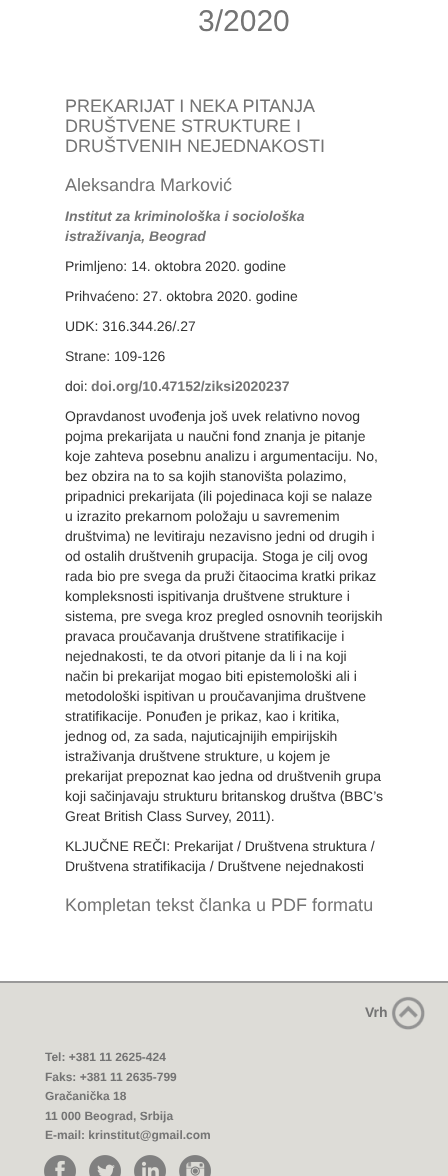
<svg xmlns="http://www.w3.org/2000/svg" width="448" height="1176">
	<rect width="100%" height="100%" fill="#DDDCD7" />
	<rect x="0" y="0" width="448" height="981" fill="#FFFFFF" />
	<text x="198" y="31" font-family="Liberation Sans" font-size="30" fill="#747474">3/2020</text>
	<g font-family="Liberation Sans" font-size="18" fill="#747474">
		<text x="65" y="112">PREKARIJAT I NEKA PITANJA</text>
		<text x="65" y="132">DRUŠTVENE STRUKTURE I</text>
		<text x="65" y="152">DRUŠTVENIH NEJEDNAKOSTI</text>
		<text x="65" y="191">Aleksandra Marković</text>
	</g>
	<g font-family="Liberation Sans" font-size="14" font-weight="700" font-style="italic" fill="#747474">
		<text x="65" y="221">Institut za kriminološka i sociološka</text>
		<text x="65" y="241">istraživanja, Beograd</text>
	</g>
	<g font-family="Liberation Sans" font-size="14" fill="#333333">
		<text x="65" y="271">Primljeno: 14. oktobra 2020. godine</text>
		<text x="65" y="301">Prihvaćeno: 27. oktobra 2020. godine</text>
		<text x="65" y="331">UDK: 316.344.26/.27</text>
		<text x="65" y="361">Strane: 109-126</text>
		<text x="65" y="391">doi:</text>
	</g>
	<text x="91" y="391" font-family="Liberation Sans" font-size="14" font-weight="700" fill="#747474">doi.org/10.47152/ziksi2020237</text>
	<g font-family="Liberation Sans" font-size="14" fill="#333333">
		<text x="65" y="421">Opravdanost uvođenja još uvek relativno novog</text>
		<text x="65" y="441">pojma prekarijata u naučni fond znanja je pitanje</text>
		<text x="65" y="461">koje zahteva posebnu analizu i argumentaciju. No,</text>
		<text x="65" y="481">bez obzira na to sa kojih stanovišta polazimo,</text>
		<text x="65" y="501">pripadnici prekarijata (ili pojedinaca koji se nalaze</text>
		<text x="65" y="521">u izrazito prekarnom položaju u savremenim</text>
		<text x="65" y="541">društvima) ne levitiraju nezavisno jedni od drugih i</text>
		<text x="65" y="561">od ostalih društvenih grupacija. Stoga je cilj ovog</text>
		<text x="65" y="581">rada bio pre svega da pruži čitaocima kratki prikaz</text>
		<text x="65" y="601">kompleksnosti ispitivanja društvene strukture i</text>
		<text x="65" y="621">sistema, pre svega kroz pregled osnovnih teorijskih</text>
		<text x="65" y="641">pravaca proučavanja društvene stratifikacije i</text>
		<text x="65" y="661">nejednakosti, te da otvori pitanje da li i na koji</text>
		<text x="65" y="681">način bi prekarijat mogao biti epistemološki ali i</text>
		<text x="65" y="701">metodološki ispitivan u proučavanjima društvene</text>
		<text x="65" y="721">stratifikacije. Ponuđen je prikaz, kao i kritika,</text>
		<text x="65" y="741">jednog od, za sada, najuticajnijih empirijskih</text>
		<text x="65" y="761">istraživanja društvene strukture, u kojem je</text>
		<text x="65" y="781">prekarijat prepoznat kao jedna od društvenih grupa</text>
		<text x="65" y="801">koji sačinjavaju strukturu britanskog društva (BBC’s</text>
		<text x="65" y="821">Great British Class Survey, 2011).</text>
		<text x="65" y="851">KLJUČNE REČI: Prekarijat / Društvena struktura /</text>
		<text x="65" y="871">Društvena stratifikacija / Društvene nejednakosti</text>
	</g>
	<text x="65" y="911" font-family="Liberation Sans" font-size="18" fill="#747474">Kompletan tekst članka u PDF formatu</text>
	<rect x="0" y="981" width="448" height="2" fill="#999999" />
	<text x="365" y="1017" font-family="Liberation Sans" font-size="14" font-weight="700" fill="#747474">Vrh</text>
	<image x="391" y="996" width="34" height="34" href="assets/img1.png" />
	<g font-family="Liberation Sans" font-size="12" font-weight="700" fill="#747474">
		<text x="45" y="1061">Tel: +381 11 2625-424</text>
		<text x="45" y="1081">Faks: +381 11 2635-799</text>
		<text x="45" y="1100">Gračanička 18</text>
		<text x="45" y="1120">11 000 Beograd, Srbija</text>
		<text x="45" y="1139">E-mail: krinstitut@gmail.com</text>
	</g>
	<image x="44" y="1155" width="32" height="21" href="assets/img2.png" />
	<image x="89" y="1155" width="32" height="21" href="assets/img3.png" />
	<image x="134" y="1155" width="32" height="21" href="assets/img4.png" />
	<image x="179" y="1155" width="32" height="21" href="assets/img5.png" />
</svg>
